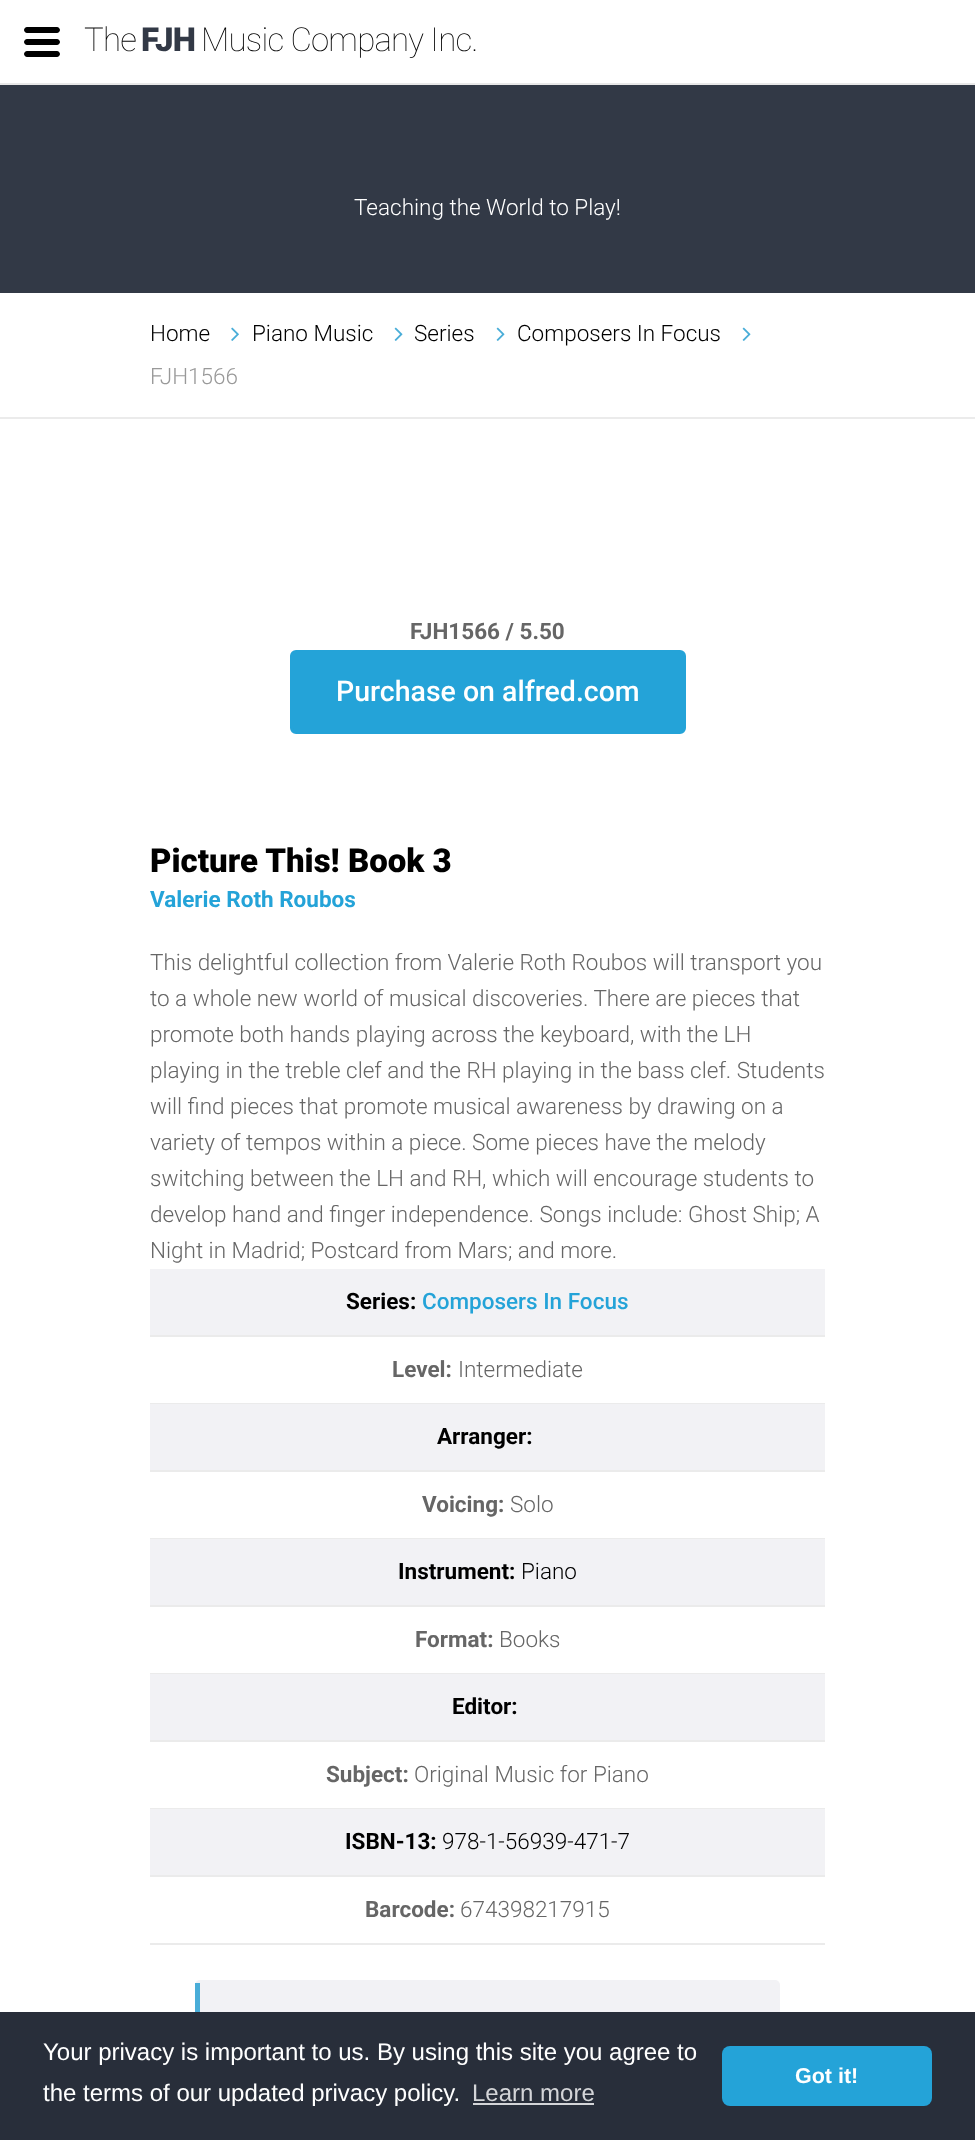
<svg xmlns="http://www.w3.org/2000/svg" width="975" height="2140">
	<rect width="100%" height="100%" fill="#FFFFFF" />
	<path d="M57 45H27C25.5 45 24 43.5 24 42C24 40.5 25.5 39 27 39H57C58.5 39 60 40.5 60 42C60 43.5 58.5 45 57 45ZM57 57H27C25.5 57 24 55.5 24 54C24 52.5 25.5 51 27 51H57C58.5 51 60 52.5 60 54C60 55.5 58.5 57 57 57ZM57 33H27C25.5 33 24 31.5 24 30C24 28.5 25.5 27 27 27H57C58.5 27 60 28.5 60 30C60 31.5 58.5 33 57 33Z" fill="#000000" />
	<text x="84" y="51" font-family="Roboto" font-size="33" font-weight="100" letter-spacing="-0.8" fill="#000000">The</text>
	<text x="141" y="51" font-family="Roboto" font-size="33" font-weight="900" letter-spacing="-0.8" fill="#323946">FJH</text>
	<text x="201" y="51" font-family="Roboto" font-size="33" font-weight="100" letter-spacing="-0.8" fill="#000000">Music Company Inc.</text>
	<rect x="0" y="83" width="975" height="2" fill="#E8E8E8" />
	<rect x="0" y="85" width="975" height="208" fill="#323946" />
	<text x="354" y="215" font-family="Roboto" font-size="22.5" font-weight="300" fill="#FFFFFF">Teaching the World to Play!</text>
	<rect x="0" y="417" width="975" height="2" fill="#EBEBEB" />
	<text x="150" y="341" font-family="Roboto" font-size="22.5" font-weight="300" fill="#000000">Home</text>
	<image x="231" y="327" width="8" height="14" href="assets/img1.png" />
	<text x="252" y="341" font-family="Roboto" font-size="22.5" font-weight="300" fill="#000000">Piano Music</text>
	<image x="394" y="327" width="9" height="14" href="assets/img2.png" />
	<text x="414" y="341" font-family="Roboto" font-size="22.5" font-weight="300" fill="#000000">Series</text>
	<image x="496" y="327" width="9" height="14" href="assets/img2.png" />
	<text x="517" y="341" font-family="Roboto" font-size="22.5" font-weight="300" fill="#000000">Composers In Focus</text>
	<image x="742" y="327" width="9" height="14" href="assets/img2.png" />
	<text x="150" y="384" font-family="Roboto" font-size="22.5" font-weight="300" fill="#999999">FJH1566</text>
	<text x="410" y="639" font-family="Roboto" font-size="22.5" font-weight="700" fill="#666666">FJH1566 / 5.50</text>
	<rect x="291.5" y="651.5" width="393" height="81" rx="4.5" fill="#24A3D8" stroke="#24A3D8" stroke-width="3" />
	<text x="336" y="701" font-family="Roboto" font-size="28.5" font-weight="500" fill="#FFFFFF">Purchase on alfred.com</text>
	<text x="150" y="872" font-family="Roboto" font-size="33" font-weight="900" fill="#000000">Picture This! Book 3</text>
	<text x="150" y="907" font-family="Roboto" font-size="22.5" font-weight="700" fill="#24A3D8">Valerie Roth Roubos</text>
	<g font-family="Roboto" font-size="22.5" font-weight="300" fill="#666666">
		<text x="150" y="970">This delightful collection from Valerie Roth Roubos will transport you</text>
		<text x="150" y="1006">to a whole new world of musical discoveries. There are pieces that</text>
		<text x="150" y="1042">promote both hands playing across the keyboard, with the LH</text>
		<text x="150" y="1078">playing in the treble clef and the RH playing in the bass clef. Students</text>
		<text x="150" y="1114">will find pieces that promote musical awareness by drawing on a</text>
		<text x="150" y="1150">variety of tempos within a piece. Some pieces have the melody</text>
		<text x="150" y="1186">switching between the LH and RH, which will encourage students to</text>
		<text x="150" y="1222">develop hand and finger independence. Songs include: Ghost Ship; A</text>
		<text x="150" y="1258">Night in Madrid; Postcard from Mars; and more.</text>
	</g>
	<rect x="150" y="1269" width="675" height="66" fill="#F2F2F5" />
	<rect x="150" y="1335" width="675" height="2" fill="#EBEBEB" />
	<text x="346" y="1309" font-family="Roboto" font-size="22.5" font-weight="700" fill="#000000">Series:</text>
	<text x="422" y="1309" font-family="Roboto" font-size="22.5" font-weight="500" fill="#24A3D8">Composers In Focus</text>
	<rect x="150" y="1403" width="675" height="1" fill="#EBEBEB" />
	<text x="392" y="1377" font-family="Roboto" font-size="22.5" font-weight="700" fill="#666666">Level:</text>
	<text x="458" y="1377" font-family="Roboto" font-size="22.5" font-weight="300" fill="#666666">Intermediate</text>
	<rect x="150" y="1404" width="675" height="66" fill="#F2F2F5" />
	<rect x="150" y="1470" width="675" height="2" fill="#EBEBEB" />
	<text x="437" y="1444" font-family="Roboto" font-size="22.5" font-weight="700" fill="#000000">Arranger:</text>
	<rect x="150" y="1538" width="675" height="1" fill="#EBEBEB" />
	<text x="422" y="1512" font-family="Roboto" font-size="22.5" font-weight="700" fill="#666666">Voicing:</text>
	<text x="510" y="1512" font-family="Roboto" font-size="22.5" font-weight="300" fill="#666666">Solo</text>
	<rect x="150" y="1539" width="675" height="66" fill="#F2F2F5" />
	<rect x="150" y="1605" width="675" height="2" fill="#EBEBEB" />
	<text x="398" y="1579" font-family="Roboto" font-size="22.5" font-weight="700" fill="#000000">Instrument:</text>
	<text x="521" y="1579" font-family="Roboto" font-size="22.5" font-weight="300" fill="#000000">Piano</text>
	<rect x="150" y="1673" width="675" height="1" fill="#EBEBEB" />
	<text x="415" y="1647" font-family="Roboto" font-size="22.5" font-weight="700" fill="#666666">Format:</text>
	<text x="499" y="1647" font-family="Roboto" font-size="22.5" font-weight="300" fill="#666666">Books</text>
	<rect x="150" y="1674" width="675" height="66" fill="#F2F2F5" />
	<rect x="150" y="1740" width="675" height="2" fill="#EBEBEB" />
	<text x="452" y="1714" font-family="Roboto" font-size="22.5" font-weight="700" fill="#000000">Editor:</text>
	<rect x="150" y="1808" width="675" height="1" fill="#EBEBEB" />
	<text x="326" y="1782" font-family="Roboto" font-size="22.5" font-weight="700" fill="#666666">Subject:</text>
	<text x="414" y="1782" font-family="Roboto" font-size="22.5" font-weight="300" fill="#666666">Original Music for Piano</text>
	<rect x="150" y="1809" width="675" height="66" fill="#F2F2F5" />
	<rect x="150" y="1875" width="675" height="2" fill="#EBEBEB" />
	<text x="345" y="1849" font-family="Roboto" font-size="22.5" font-weight="700" fill="#000000">ISBN-13:</text>
	<text x="442" y="1849" font-family="Roboto" font-size="22.5" font-weight="300" fill="#000000">978-1-56939-471-7</text>
	<rect x="150" y="1943" width="675" height="2" fill="#EBEBEB" />
	<text x="365" y="1917" font-family="Roboto" font-size="22.5" font-weight="700" fill="#666666">Barcode:</text>
	<text x="460" y="1917" font-family="Roboto" font-size="22.5" font-weight="300" fill="#666666">674398217915</text>
	<rect x="195" y="1980" width="585" height="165" rx="5" fill="#F2F2F5" />
	<rect x="195" y="1983" width="5" height="29" fill="#49ADD8" />
	<rect x="0" y="2012" width="975" height="128" fill="#282E3A" />
	<g font-family="Liberation Sans" font-size="24" fill="#FFFFFF">
		<text x="43" y="2060">Your privacy is important to us. By using this site you agree to</text>
		<text x="43" y="2101">the terms of our updated privacy policy.</text>
	</g>
	<text x="472" y="2101" font-family="Liberation Sans" font-size="24" fill="#D4D5D8">Learn more</text>
	<rect x="473" y="2103" width="121" height="2" fill="#D4D5D8" />
	<rect x="722" y="2046" width="210" height="60" rx="8" fill="#24A3D8" />
	<text x="795" y="2083" font-family="Liberation Sans" font-size="21.5" font-weight="700" fill="#FFFFFF">Got it!</text>
</svg>
